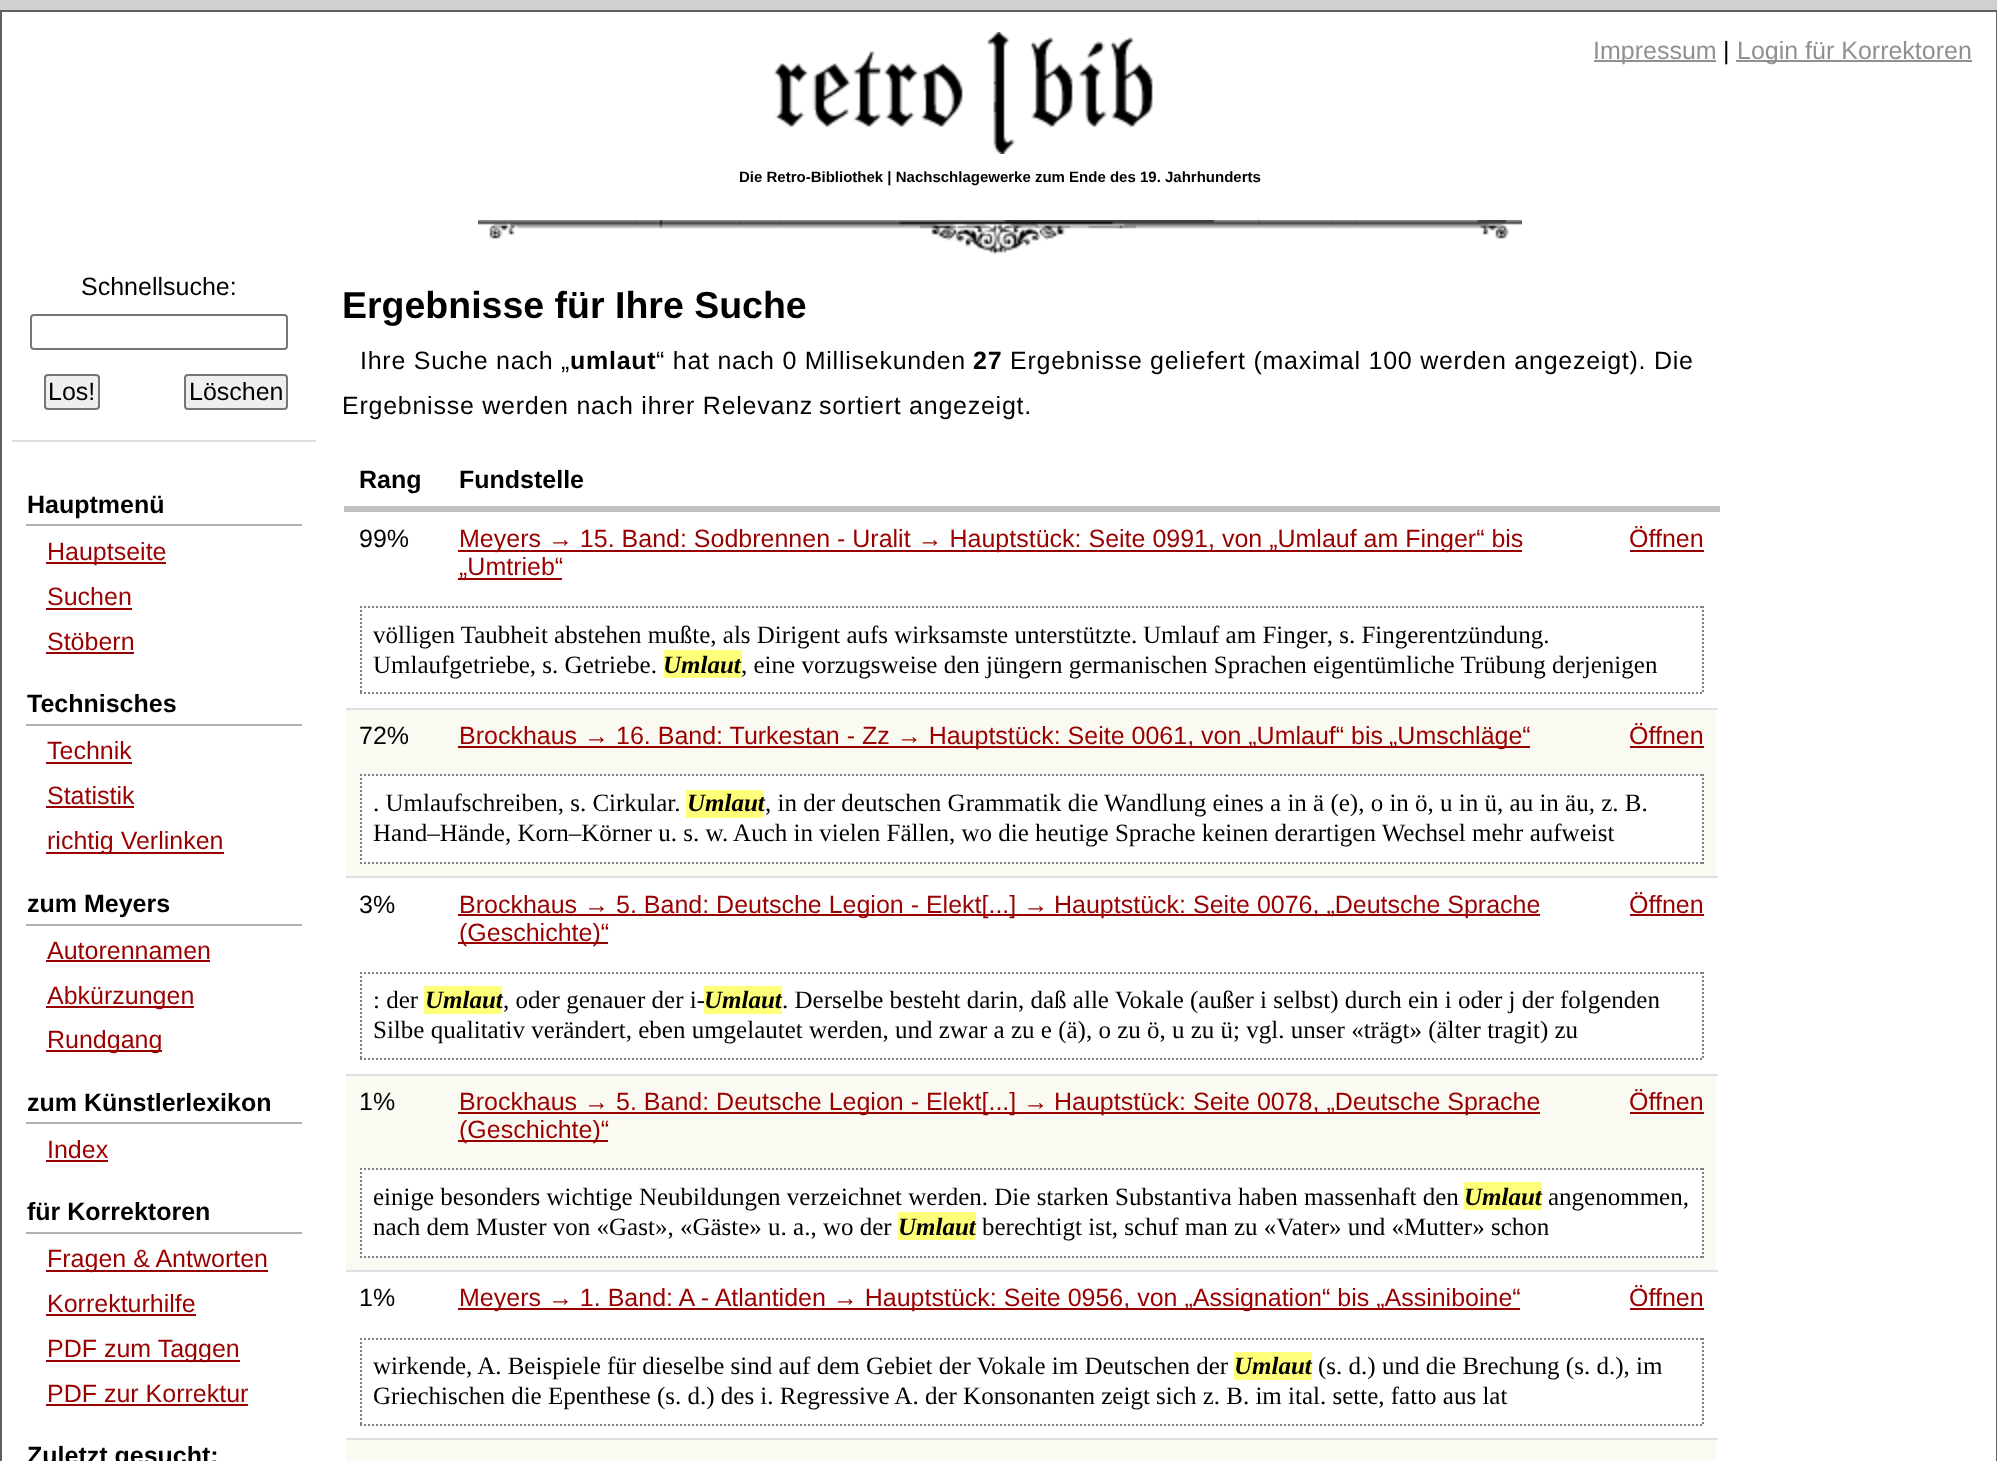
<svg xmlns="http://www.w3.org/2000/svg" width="1997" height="1461">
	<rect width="100%" height="100%" fill="#D0D0D0" />
	<rect x="1" y="11" width="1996" height="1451" fill="#FFFFFF" stroke="#606060" stroke-width="2" />
	<image x="478" y="220" width="1044" height="34" href="assets/img1.png" />
	<image x="774" y="32" width="379" height="122" href="assets/img2.png" />
	<rect x="1594" y="60" width="122" height="2" fill="#909090" />
	<text x="1593" y="59" font-family="Liberation Sans" font-size="25" fill="#909090">Impressum</text>
	<text x="1723" y="59" font-family="Liberation Sans" font-size="25" fill="#000000">|</text>
	<rect x="1736" y="60" width="236" height="2" fill="#909090" />
	<text x="1737" y="59" font-family="Liberation Sans" font-size="25" fill="#909090">Login für Korrektoren</text>
	<text x="739" y="182" font-family="Liberation Sans" font-size="15" font-weight="700" fill="#000000">Die Retro-Bibliothek | Nachschlagewerke zum Ende des 19. Jahrhunderts</text>
	<rect x="12" y="440" width="304" height="2" fill="#E0E0E0" />
	<text x="81" y="295" font-family="Liberation Sans" font-size="25" fill="#000000">Schnellsuche:</text>
	<rect x="31" y="315" width="256" height="34" rx="3" fill="none" stroke="#767676" stroke-width="2" />
	<rect x="45" y="375" width="54" height="34" rx="3" fill="#EFEFEF" stroke="#767676" stroke-width="2" />
	<text x="48" y="400" font-family="Liberation Sans" font-size="25" fill="#000000">Los!</text>
	<rect x="185" y="375" width="102" height="34" rx="3" fill="#EFEFEF" stroke="#767676" stroke-width="2" />
	<text x="189" y="400" font-family="Liberation Sans" font-size="25" fill="#000000">Löschen</text>
	<rect x="26" y="524" width="276" height="2" fill="#B0B0B0" />
	<text x="27" y="513" font-family="Liberation Sans" font-size="25" font-weight="700" fill="#000000">Hauptmenü</text>
	<rect x="46" y="562" width="120" height="2" fill="#990000" />
	<g font-family="Liberation Sans" font-size="25" fill="#990000">
		<text x="47" y="560">Hauptseite</text>
		<text x="47" y="605">Suchen</text>
	</g>
	<rect x="46" y="608" width="86" height="2" fill="#990000" />
	<text x="47" y="650" font-family="Liberation Sans" font-size="25" fill="#990000">Stöbern</text>
	<rect x="46" y="652" width="88" height="2" fill="#990000" />
	<rect x="26" y="724" width="276" height="2" fill="#B0B0B0" />
	<text x="27" y="712" font-family="Liberation Sans" font-size="25" font-weight="700" fill="#000000">Technisches</text>
	<text x="47" y="759" font-family="Liberation Sans" font-size="25" fill="#990000">Technik</text>
	<rect x="46" y="762" width="86" height="2" fill="#990000" />
	<text x="47" y="804" font-family="Liberation Sans" font-size="25" fill="#990000">Statistik</text>
	<rect x="46" y="806" width="88" height="2" fill="#990000" />
	<rect x="46" y="852" width="178" height="2" fill="#990000" />
	<text x="47" y="849" font-family="Liberation Sans" font-size="25" fill="#990000">richtig Verlinken</text>
	<rect x="26" y="924" width="276" height="2" fill="#B0B0B0" />
	<text x="27" y="912" font-family="Liberation Sans" font-size="25" font-weight="700" fill="#000000">zum Meyers</text>
	<text x="47" y="959" font-family="Liberation Sans" font-size="25" fill="#990000">Autorennamen</text>
	<rect x="46" y="960" width="164" height="2" fill="#990000" />
	<rect x="46" y="1006" width="148" height="2" fill="#990000" />
	<text x="47" y="1004" font-family="Liberation Sans" font-size="25" fill="#990000">Abkürzungen</text>
	<rect x="46" y="1050" width="116" height="2" fill="#990000" />
	<text x="47" y="1048" font-family="Liberation Sans" font-size="25" fill="#990000">Rundgang</text>
	<rect x="26" y="1122" width="276" height="2" fill="#B0B0B0" />
	<text x="27" y="1111" font-family="Liberation Sans" font-size="25" font-weight="700" fill="#000000">zum Künstlerlexikon</text>
	<text x="47" y="1158" font-family="Liberation Sans" font-size="25" fill="#990000">Index</text>
	<rect x="46" y="1160" width="62" height="2" fill="#990000" />
	<rect x="26" y="1232" width="276" height="2" fill="#B0B0B0" />
	<text x="27" y="1220" font-family="Liberation Sans" font-size="25" font-weight="700" fill="#000000">für Korrektoren</text>
	<rect x="46" y="1270" width="222" height="2" fill="#990000" />
	<g font-family="Liberation Sans" font-size="25" fill="#990000">
		<text x="47" y="1267">Fragen &amp; Antworten</text>
		<text x="47" y="1312">Korrekturhilfe</text>
	</g>
	<rect x="46" y="1314" width="150" height="2" fill="#990000" />
	<rect x="46" y="1360" width="194" height="2" fill="#990000" />
	<g font-family="Liberation Sans" font-size="25" fill="#990000">
		<text x="47" y="1357">PDF zum Taggen</text>
		<text x="47" y="1402">PDF zur Korrektur</text>
	</g>
	<rect x="46" y="1404" width="202" height="2" fill="#990000" />
	<text x="27" y="1464" font-family="Liberation Sans" font-size="25" font-weight="700" fill="#000000">Zuletzt gesucht:</text>
	<text x="342" y="318" font-family="Liberation Sans" font-size="37.5" font-weight="700" fill="#000000">Ergebnisse für Ihre Suche</text>
	<text x="360" y="369" font-family="Liberation Sans" font-size="25" letter-spacing="0.75" fill="#000000">Ihre Suche nach „</text>
	<text x="570" y="369" font-family="Liberation Sans" font-size="25" font-weight="700" letter-spacing="0.75" fill="#000000">umlaut</text>
	<text x="656" y="369" font-family="Liberation Sans" font-size="25" letter-spacing="0.75" fill="#000000">“ hat nach 0 Millisekunden</text>
	<text x="973" y="369" font-family="Liberation Sans" font-size="25" font-weight="700" letter-spacing="0.75" fill="#000000">27</text>
	<g font-family="Liberation Sans" font-size="25" letter-spacing="0.75" fill="#000000">
		<text x="1010" y="369">Ergebnisse</text>
		<text x="1150" y="369">geliefert (maximal 100 werden angezeigt). Die</text>
		<text x="342" y="414">Ergebnisse werden nach ihrer Relevanz</text>
		<text x="819" y="414">sortiert angezeigt.</text>
	</g>
	<g font-family="Liberation Sans" font-size="25" font-weight="700" fill="#000000">
		<text x="359" y="488">Rang</text>
		<text x="459" y="488">Fundstelle</text>
	</g>
	<rect x="344" y="506" width="1376" height="6" fill="#C0C0C0" />
	<text x="359" y="547" font-family="Liberation Sans" font-size="25" fill="#000000">99%</text>
	<rect x="458" y="550" width="1016" height="2" fill="#990000" />
	<text x="459" y="547" font-family="Liberation Sans" font-size="25" fill="#990000">Meyers → 15. Band: Sodbrennen - Uralit → Hauptstück: Seite 0991, von „Umlauf am Finger“ bis</text>
	<rect x="1474" y="550" width="48" height="2" fill="#990000" />
	<rect x="458" y="578" width="8" height="2" fill="#990000" />
	<text x="459" y="575" font-family="Liberation Sans" font-size="25" fill="#990000">„Umtrieb“</text>
	<rect x="466" y="578" width="96" height="2" fill="#990000" />
	<text x="1629" y="547" font-family="Liberation Sans" font-size="25" fill="#990000">Öffnen</text>
	<rect x="1630" y="550" width="74" height="2" fill="#990000" />
	<path d="M360 607H1704" fill="none" stroke="#808080" stroke-width="2" stroke-dasharray="2 2" />
	<path d="M1703 606V694" fill="none" stroke="#808080" stroke-width="2" stroke-dasharray="2 2" />
	<path d="M360 693H1704" fill="none" stroke="#808080" stroke-width="2" stroke-dasharray="2 2" />
	<path d="M361 606V694" fill="none" stroke="#808080" stroke-width="2" stroke-dasharray="2 2" />
	<g font-family="Liberation Serif" font-size="25" fill="#000000">
		<text x="373" y="643">völligen Taubheit abstehen mußte, als Dirigent aufs wirksamste unterstützte.</text>
		<text x="1143" y="643">Umlauf am Finger, s. Fingerentzündung.</text>
		<text x="373" y="673">Umlaufgetriebe, s. Getriebe.</text>
	</g>
	<rect x="664" y="650" width="78" height="28" fill="#FFFF79" />
	<text x="663" y="673" font-family="Liberation Serif" font-size="25" font-weight="700" font-style="italic" fill="#000000">Umlaut</text>
	<text x="741" y="673" font-family="Liberation Serif" font-size="25" fill="#000000">, eine vorzugsweise den jüngern germanischen Sprachen eigentümliche Trübung derjenigen</text>
	<rect x="346" y="710" width="1370" height="166" fill="#FAFAF2" />
	<rect x="346" y="708" width="1372" height="2" fill="#E0E0E0" />
	<text x="359" y="744" font-family="Liberation Sans" font-size="25" fill="#000000">72%</text>
	<rect x="458" y="746" width="876" height="2" fill="#990000" />
	<text x="459" y="744" font-family="Liberation Sans" font-size="25" fill="#990000">Brockhaus → 16. Band: Turkestan - Zz → Hauptstück: Seite 0061, von „Umlauf“ bis</text>
	<rect x="1334" y="746" width="196" height="2" fill="#990000" />
	<g font-family="Liberation Sans" font-size="25" fill="#990000">
		<text x="1389" y="744">„Umschläge“</text>
		<text x="1629" y="744">Öffnen</text>
	</g>
	<rect x="1630" y="746" width="74" height="2" fill="#990000" />
	<rect x="360" y="774" width="1344" height="90" fill="#FFFFFF" />
	<path d="M360 775H1704" fill="none" stroke="#808080" stroke-width="2" stroke-dasharray="2 2" />
	<path d="M1703 774V864" fill="none" stroke="#808080" stroke-width="2" stroke-dasharray="2 2" />
	<path d="M360 863H1704" fill="none" stroke="#808080" stroke-width="2" stroke-dasharray="2 2" />
	<path d="M361 774V864" fill="none" stroke="#808080" stroke-width="2" stroke-dasharray="2 2" />
	<text x="373" y="811" font-family="Liberation Serif" font-size="25" fill="#000000">. Umlaufschreiben, s. Cirkular.</text>
	<rect x="686" y="790" width="78" height="28" fill="#FFFF79" />
	<text x="687" y="811" font-family="Liberation Serif" font-size="25" font-weight="700" font-style="italic" fill="#000000">Umlaut</text>
	<g font-family="Liberation Serif" font-size="25" fill="#000000">
		<text x="765" y="811">, in der deutschen Grammatik die Wandlung eines a in ä (e), o in ö, u in ü, au in äu, z. B.</text>
		<text x="373" y="841">Hand–Hände, Korn–Körner u. s. w. Auch in vielen Fällen, wo die heutige Sprache keinen derartigen Wechsel mehr aufweist</text>
	</g>
	<rect x="346" y="876" width="1372" height="2" fill="#E0E0E0" />
	<text x="359" y="913" font-family="Liberation Sans" font-size="25" fill="#000000">3%</text>
	<rect x="458" y="914" width="1082" height="2" fill="#990000" />
	<g font-family="Liberation Sans" font-size="25" fill="#990000">
		<text x="459" y="913">Brockhaus → 5. Band: Deutsche Legion - Elekt[...] →</text>
		<text x="1054" y="913">Hauptstück: Seite 0076, „Deutsche Sprache</text>
	</g>
	<rect x="458" y="942" width="150" height="2" fill="#990000" />
	<g font-family="Liberation Sans" font-size="25" fill="#990000">
		<text x="459" y="941">(Geschichte)“</text>
		<text x="1629" y="913">Öffnen</text>
	</g>
	<rect x="1630" y="914" width="74" height="2" fill="#990000" />
	<path d="M360 973H1704" fill="none" stroke="#808080" stroke-width="2" stroke-dasharray="2 2" />
	<path d="M1703 972V1060" fill="none" stroke="#808080" stroke-width="2" stroke-dasharray="2 2" />
	<path d="M360 1059H1704" fill="none" stroke="#808080" stroke-width="2" stroke-dasharray="2 2" />
	<path d="M361 972V1060" fill="none" stroke="#808080" stroke-width="2" stroke-dasharray="2 2" />
	<text x="373" y="1008" font-family="Liberation Serif" font-size="25" fill="#000000">: der</text>
	<rect x="424" y="986" width="78" height="28" fill="#FFFF79" />
	<text x="425" y="1008" font-family="Liberation Serif" font-size="25" font-weight="700" font-style="italic" fill="#000000">Umlaut</text>
	<text x="503" y="1008" font-family="Liberation Serif" font-size="25" fill="#000000">, oder genauer der i-</text>
	<rect x="704" y="986" width="78" height="28" fill="#FFFF79" />
	<text x="704" y="1008" font-family="Liberation Serif" font-size="25" font-weight="700" font-style="italic" fill="#000000">Umlaut</text>
	<g font-family="Liberation Serif" font-size="25" fill="#000000">
		<text x="782" y="1008">. Derselbe besteht darin, daß alle Vokale (außer i selbst) durch ein i oder j der folgenden</text>
		<text x="373" y="1038">Silbe qualitativ verändert, eben umgelautet werden, und zwar a zu e (ä), o zu ö, u zu ü; vgl. unser «trägt» (älter tragit) zu</text>
	</g>
	<rect x="346" y="1076" width="1370" height="194" fill="#FAFAF2" />
	<rect x="346" y="1074" width="1372" height="2" fill="#E0E0E0" />
	<text x="359" y="1110" font-family="Liberation Sans" font-size="25" fill="#000000">1%</text>
	<rect x="458" y="1112" width="1082" height="2" fill="#990000" />
	<g font-family="Liberation Sans" font-size="25" fill="#990000">
		<text x="459" y="1110">Brockhaus → 5. Band: Deutsche Legion - Elekt[...] →</text>
		<text x="1054" y="1110">Hauptstück: Seite 0078, „Deutsche Sprache</text>
	</g>
	<rect x="458" y="1140" width="150" height="2" fill="#990000" />
	<g font-family="Liberation Sans" font-size="25" fill="#990000">
		<text x="459" y="1138">(Geschichte)“</text>
		<text x="1629" y="1110">Öffnen</text>
	</g>
	<rect x="1630" y="1112" width="74" height="2" fill="#990000" />
	<rect x="360" y="1168" width="1344" height="90" fill="#FFFFFF" />
	<path d="M360 1169H1704" fill="none" stroke="#808080" stroke-width="2" stroke-dasharray="2 2" />
	<path d="M1703 1168V1258" fill="none" stroke="#808080" stroke-width="2" stroke-dasharray="2 2" />
	<path d="M360 1257H1704" fill="none" stroke="#808080" stroke-width="2" stroke-dasharray="2 2" />
	<path d="M361 1168V1258" fill="none" stroke="#808080" stroke-width="2" stroke-dasharray="2 2" />
	<text x="373" y="1205" font-family="Liberation Serif" font-size="25" fill="#000000">einige besonders wichtige Neubildungen verzeichnet werden. Die starken Substantiva haben massenhaft den</text>
	<rect x="1464" y="1182" width="78" height="28" fill="#FFFF79" />
	<text x="1464" y="1205" font-family="Liberation Serif" font-size="25" font-weight="700" font-style="italic" fill="#000000">Umlaut</text>
	<g font-family="Liberation Serif" font-size="25" fill="#000000">
		<text x="1548" y="1205">angenommen,</text>
		<text x="373" y="1235">nach dem Muster von «Gast», «Gäste» u. a., wo der</text>
	</g>
	<rect x="898" y="1212" width="78" height="28" fill="#FFFF79" />
	<text x="898" y="1235" font-family="Liberation Serif" font-size="25" font-weight="700" font-style="italic" fill="#000000">Umlaut</text>
	<text x="982" y="1235" font-family="Liberation Serif" font-size="25" fill="#000000">berechtigt ist, schuf man zu «Vater» und «Mutter» schon</text>
	<rect x="346" y="1270" width="1372" height="2" fill="#E0E0E0" />
	<text x="359" y="1306" font-family="Liberation Sans" font-size="25" fill="#000000">1%</text>
	<rect x="458" y="1308" width="1062" height="2" fill="#990000" />
	<g font-family="Liberation Sans" font-size="25" fill="#990000">
		<text x="459" y="1306">Meyers → 1. Band: A - Atlantiden → Hauptstück: Seite 0956, von „Assignation“ bis „Assiniboine“</text>
		<text x="1629" y="1306">Öffnen</text>
	</g>
	<rect x="1630" y="1308" width="74" height="2" fill="#990000" />
	<path d="M360 1339H1704" fill="none" stroke="#808080" stroke-width="2" stroke-dasharray="2 2" />
	<path d="M1703 1338V1426" fill="none" stroke="#808080" stroke-width="2" stroke-dasharray="2 2" />
	<path d="M360 1425H1704" fill="none" stroke="#808080" stroke-width="2" stroke-dasharray="2 2" />
	<path d="M361 1338V1426" fill="none" stroke="#808080" stroke-width="2" stroke-dasharray="2 2" />
	<text x="373" y="1374" font-family="Liberation Serif" font-size="25" fill="#000000">wirkende, A. Beispiele für dieselbe sind auf dem Gebiet der Vokale im Deutschen der</text>
	<rect x="1234" y="1352" width="78" height="28" fill="#FFFF79" />
	<text x="1234" y="1374" font-family="Liberation Serif" font-size="25" font-weight="700" font-style="italic" fill="#000000">Umlaut</text>
	<g font-family="Liberation Serif" font-size="25" fill="#000000">
		<text x="1318" y="1374">(s. d.) und die Brechung (s. d.), im</text>
		<text x="373" y="1404">Griechischen die Epenthese (s. d.) des i. Regressive A. der Konsonanten zeigt sich z. B. im ital. sette, fatto aus lat</text>
	</g>
	<rect x="346" y="1440" width="1370" height="21" fill="#FAFAF2" />
	<rect x="346" y="1438" width="1372" height="2" fill="#E0E0E0" />
</svg>
